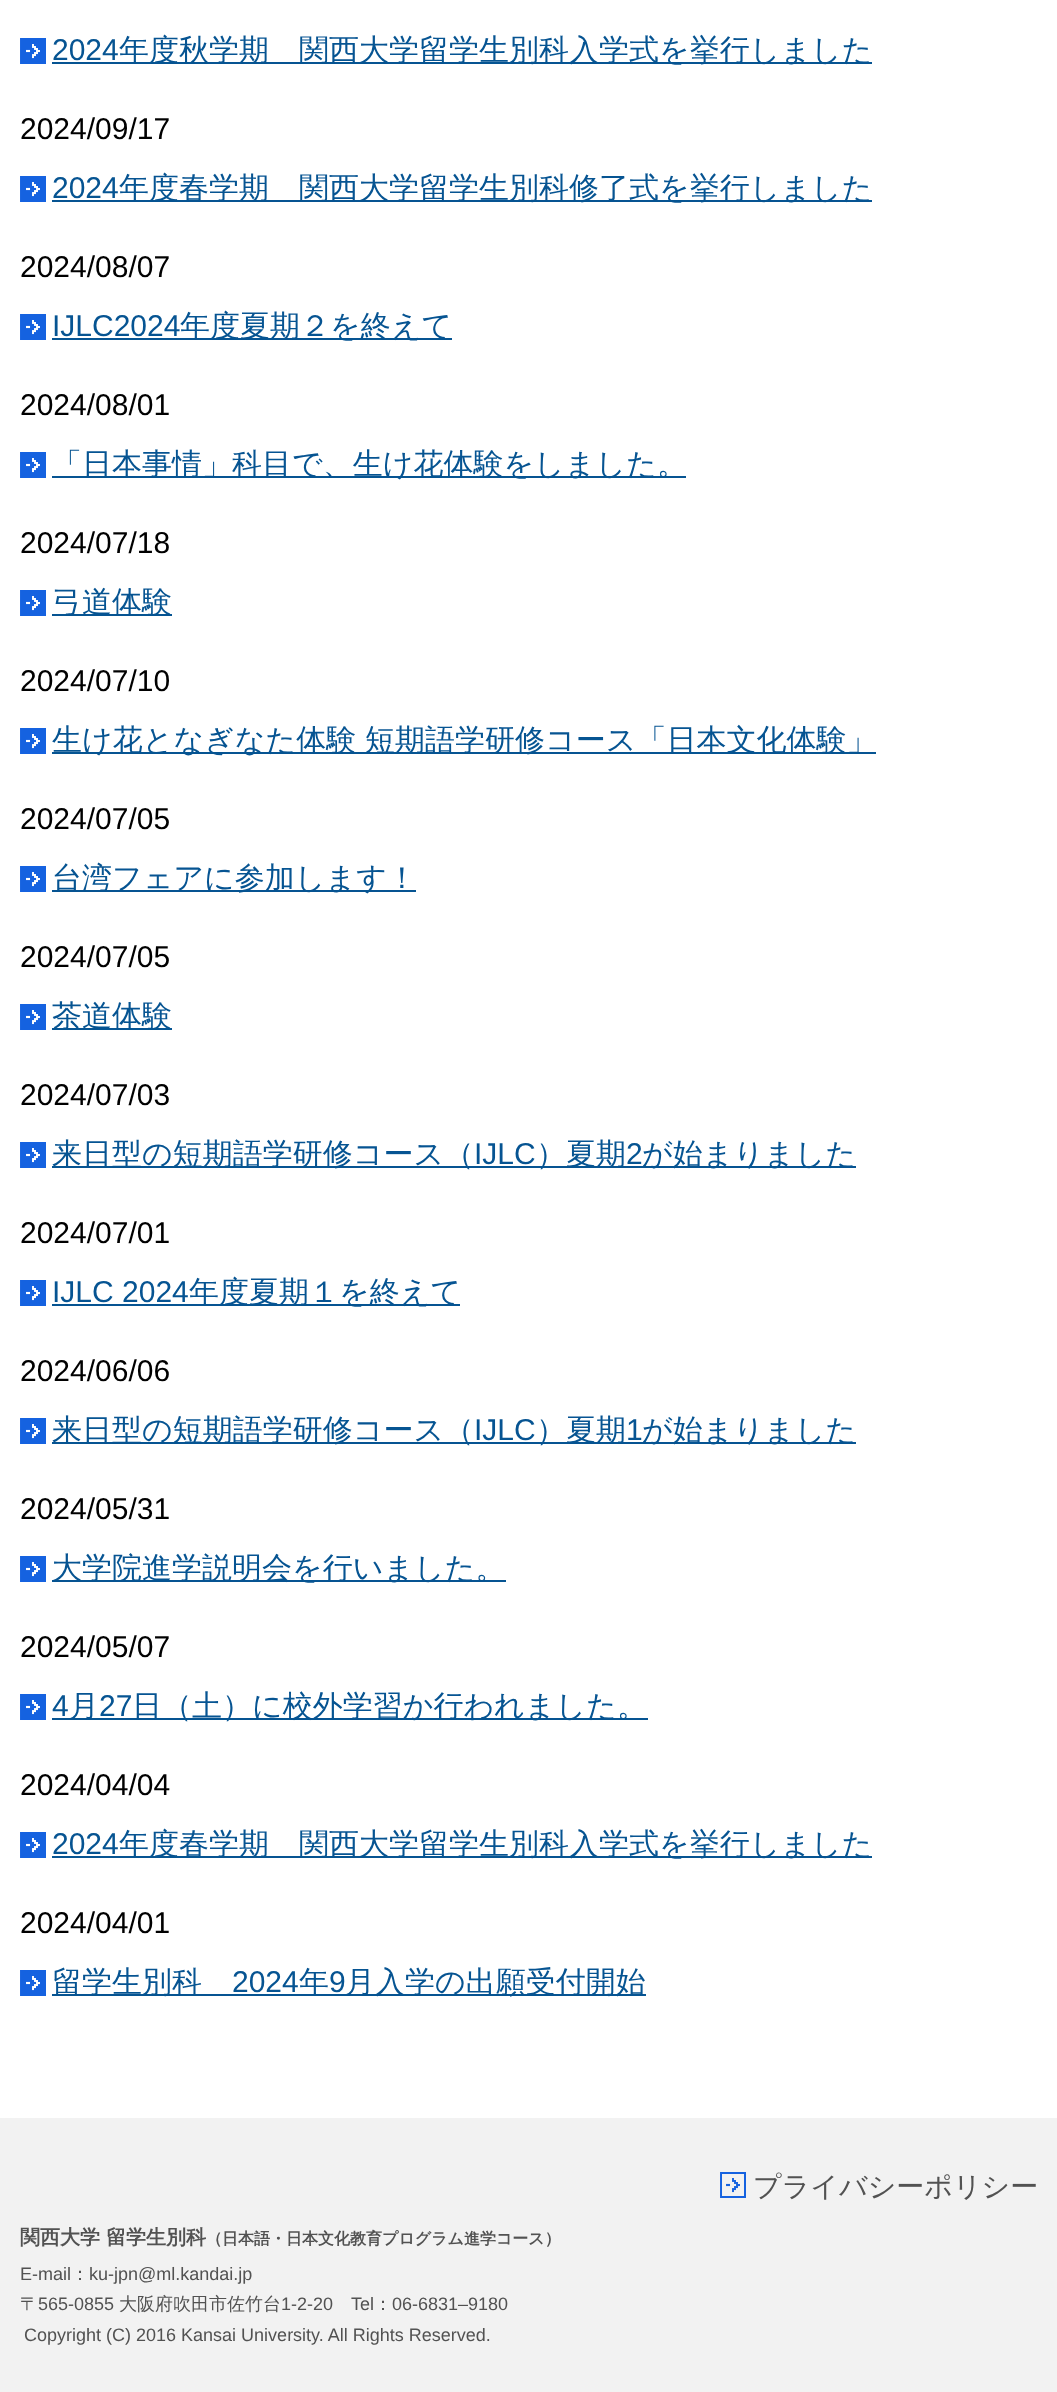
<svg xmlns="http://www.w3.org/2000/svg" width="1057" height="2392">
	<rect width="100%" height="100%" fill="#FFFFFF" />
	<image x="20" y="38" width="26" height="26" href="assets/img1.png" />
	<text x="52" y="60" font-family="Liberation Sans" font-size="30" fill="#065492">2024</text>
	<rect x="52" y="62" width="820" height="2" fill="#065492" />
	<text x="119" y="60" font-family="WenQuanYi Zen Hei" font-size="30" font-weight="500" fill="#065492">年度秋学期　関西大学留学生別科入学式を挙行しました</text>
	<text x="20" y="139" font-family="Liberation Sans" font-size="30" fill="#000000">2024/09/17</text>
	<image x="20" y="176" width="26" height="26" href="assets/img1.png" />
	<text x="52" y="198" font-family="Liberation Sans" font-size="30" fill="#065492">2024</text>
	<rect x="52" y="200" width="820" height="2" fill="#065492" />
	<text x="119" y="198" font-family="WenQuanYi Zen Hei" font-size="30" font-weight="500" fill="#065492">年度春学期　関西大学留学生別科修了式を挙行しました</text>
	<text x="20" y="277" font-family="Liberation Sans" font-size="30" fill="#000000">2024/08/07</text>
	<image x="20" y="314" width="26" height="26" href="assets/img1.png" />
	<text x="52" y="336" font-family="Liberation Sans" font-size="30" fill="#065492">IJLC2024</text>
	<rect x="52" y="338" width="400" height="2" fill="#065492" />
	<text x="180" y="336" font-family="WenQuanYi Zen Hei" font-size="30" font-weight="500" fill="#065492">年度夏期２を終えて</text>
	<text x="20" y="415" font-family="Liberation Sans" font-size="30" fill="#000000">2024/08/01</text>
	<image x="20" y="452" width="26" height="26" href="assets/img1.png" />
	<rect x="52" y="476" width="634" height="2" fill="#065492" />
	<text x="52" y="474" font-family="WenQuanYi Zen Hei" font-size="30" font-weight="500" fill="#065492">「日本事情」科目で、生け花体験をしました。</text>
	<text x="20" y="553" font-family="Liberation Sans" font-size="30" fill="#000000">2024/07/18</text>
	<image x="20" y="590" width="26" height="26" href="assets/img1.png" />
	<rect x="52" y="614" width="120" height="2" fill="#065492" />
	<text x="52" y="612" font-family="WenQuanYi Zen Hei" font-size="30" font-weight="500" fill="#065492">弓道体験</text>
	<text x="20" y="691" font-family="Liberation Sans" font-size="30" fill="#000000">2024/07/10</text>
	<image x="20" y="728" width="26" height="26" href="assets/img1.png" />
	<rect x="52" y="752" width="824" height="2" fill="#065492" />
	<g font-family="WenQuanYi Zen Hei" font-size="30" font-weight="500" fill="#065492">
		<text x="52" y="750">生け花となぎなた体験</text>
		<text x="365" y="750">短期語学研修コース「日本文化体験」</text>
	</g>
	<text x="20" y="829" font-family="Liberation Sans" font-size="30" fill="#000000">2024/07/05</text>
	<image x="20" y="866" width="26" height="26" href="assets/img1.png" />
	<rect x="52" y="890" width="364" height="2" fill="#065492" />
	<text x="52" y="888" font-family="WenQuanYi Zen Hei" font-size="30" font-weight="500" fill="#065492">台湾フェアに参加します！</text>
	<text x="20" y="967" font-family="Liberation Sans" font-size="30" fill="#000000">2024/07/05</text>
	<image x="20" y="1004" width="26" height="26" href="assets/img1.png" />
	<rect x="52" y="1028" width="120" height="2" fill="#065492" />
	<text x="52" y="1026" font-family="WenQuanYi Zen Hei" font-size="30" font-weight="500" fill="#065492">茶道体験</text>
	<text x="20" y="1105" font-family="Liberation Sans" font-size="30" fill="#000000">2024/07/03</text>
	<image x="20" y="1142" width="26" height="26" href="assets/img1.png" />
	<rect x="52" y="1166" width="804" height="2" fill="#065492" />
	<text x="52" y="1164" font-family="WenQuanYi Zen Hei" font-size="30" font-weight="500" fill="#065492">来日型の短期語学研修コース（</text>
	<text x="474" y="1164" font-family="Liberation Sans" font-size="30" fill="#065492">IJLC</text>
	<text x="536" y="1164" font-family="WenQuanYi Zen Hei" font-size="30" font-weight="500" fill="#065492">）夏期</text>
	<text x="626" y="1164" font-family="Liberation Sans" font-size="30" fill="#065492">2</text>
	<text x="642" y="1164" font-family="WenQuanYi Zen Hei" font-size="30" font-weight="500" fill="#065492">が始まりました</text>
	<text x="20" y="1243" font-family="Liberation Sans" font-size="30" fill="#000000">2024/07/01</text>
	<image x="20" y="1280" width="26" height="26" href="assets/img1.png" />
	<text x="52" y="1302" font-family="Liberation Sans" font-size="30" fill="#065492">IJLC 2024</text>
	<rect x="52" y="1304" width="408" height="2" fill="#065492" />
	<text x="189" y="1302" font-family="WenQuanYi Zen Hei" font-size="30" font-weight="500" fill="#065492">年度夏期１を終えて</text>
	<text x="20" y="1381" font-family="Liberation Sans" font-size="30" fill="#000000">2024/06/06</text>
	<image x="20" y="1418" width="26" height="26" href="assets/img1.png" />
	<rect x="52" y="1442" width="804" height="2" fill="#065492" />
	<text x="52" y="1440" font-family="WenQuanYi Zen Hei" font-size="30" font-weight="500" fill="#065492">来日型の短期語学研修コース（</text>
	<text x="474" y="1440" font-family="Liberation Sans" font-size="30" fill="#065492">IJLC</text>
	<text x="536" y="1440" font-family="WenQuanYi Zen Hei" font-size="30" font-weight="500" fill="#065492">）夏期</text>
	<text x="626" y="1440" font-family="Liberation Sans" font-size="30" fill="#065492">1</text>
	<text x="642" y="1440" font-family="WenQuanYi Zen Hei" font-size="30" font-weight="500" fill="#065492">が始まりました</text>
	<text x="20" y="1519" font-family="Liberation Sans" font-size="30" fill="#000000">2024/05/31</text>
	<image x="20" y="1556" width="26" height="26" href="assets/img1.png" />
	<rect x="52" y="1580" width="454" height="2" fill="#065492" />
	<text x="52" y="1578" font-family="WenQuanYi Zen Hei" font-size="30" font-weight="500" fill="#065492">大学院進学説明会を行いました。</text>
	<text x="20" y="1657" font-family="Liberation Sans" font-size="30" fill="#000000">2024/05/07</text>
	<image x="20" y="1694" width="26" height="26" href="assets/img1.png" />
	<text x="52" y="1716" font-family="Liberation Sans" font-size="30" fill="#065492">4</text>
	<rect x="52" y="1718" width="596" height="2" fill="#065492" />
	<text x="69" y="1716" font-family="WenQuanYi Zen Hei" font-size="30" font-weight="500" fill="#065492">月</text>
	<text x="99" y="1716" font-family="Liberation Sans" font-size="30" fill="#065492">27</text>
	<text x="132" y="1716" font-family="WenQuanYi Zen Hei" font-size="30" font-weight="500" fill="#065492">日（土）に校外学習か行われました。</text>
	<text x="20" y="1795" font-family="Liberation Sans" font-size="30" fill="#000000">2024/04/04</text>
	<image x="20" y="1832" width="26" height="26" href="assets/img1.png" />
	<text x="52" y="1854" font-family="Liberation Sans" font-size="30" fill="#065492">2024</text>
	<rect x="52" y="1856" width="820" height="2" fill="#065492" />
	<text x="119" y="1854" font-family="WenQuanYi Zen Hei" font-size="30" font-weight="500" fill="#065492">年度春学期　関西大学留学生別科入学式を挙行しました</text>
	<text x="20" y="1933" font-family="Liberation Sans" font-size="30" fill="#000000">2024/04/01</text>
	<image x="20" y="1970" width="26" height="26" href="assets/img1.png" />
	<rect x="52" y="1994" width="594" height="2" fill="#065492" />
	<text x="52" y="1992" font-family="WenQuanYi Zen Hei" font-size="30" font-weight="500" fill="#065492">留学生別科</text>
	<text x="232" y="1992" font-family="Liberation Sans" font-size="30" fill="#065492">2024</text>
	<text x="299" y="1992" font-family="WenQuanYi Zen Hei" font-size="30" font-weight="500" fill="#065492">年</text>
	<text x="329" y="1992" font-family="Liberation Sans" font-size="30" fill="#065492">9</text>
	<text x="345" y="1992" font-family="WenQuanYi Zen Hei" font-size="30" font-weight="500" fill="#065492">月入学の出願受付開始</text>
	<rect x="0" y="2118" width="1057" height="274" fill="#F2F2F2" />
	<image x="720" y="2172" width="26" height="26" href="assets/img2.png" />
	<text x="753" y="2196" font-family="WenQuanYi Zen Hei" font-size="28" font-weight="500" fill="#525252">プライバシーポリシー</text>
	<text x="20" y="2244" font-family="WenQuanYi Zen Hei" font-size="20" font-weight="700" fill="#525252">関西大学 留学生別科</text>
	<text x="206" y="2244" font-family="WenQuanYi Zen Hei" font-size="16" font-weight="700" fill="#525252">（日本語・日本文化教育プログラム進学コース）</text>
	<text x="20" y="2280" font-family="Liberation Sans" font-size="18" fill="#525252">E-mail</text>
	<text x="71" y="2280" font-family="WenQuanYi Zen Hei" font-size="18" font-weight="500" fill="#525252">：</text>
	<text x="89" y="2280" font-family="Liberation Sans" font-size="18" fill="#525252">ku-jpn@ml.kandai.jp</text>
	<text x="20" y="2310" font-family="WenQuanYi Zen Hei" font-size="18" font-weight="500" fill="#525252">〒</text>
	<text x="38" y="2310" font-family="Liberation Sans" font-size="18" fill="#525252">565-0855</text>
	<text x="119" y="2310" font-family="WenQuanYi Zen Hei" font-size="18" font-weight="500" fill="#525252">大阪府吹田市佐竹台</text>
	<text x="281" y="2310" font-family="Liberation Sans" font-size="18" fill="#525252">1-2-20 Tel</text>
	<text x="374" y="2310" font-family="WenQuanYi Zen Hei" font-size="18" font-weight="500" fill="#525252">：</text>
	<g font-family="Liberation Sans" font-size="18" fill="#525252">
		<text x="392" y="2310">06-6831‒9180</text>
		<text x="24" y="2341">Copyright (C) 2016 Kansai University. All Rights Reserved.</text>
	</g>
</svg>
